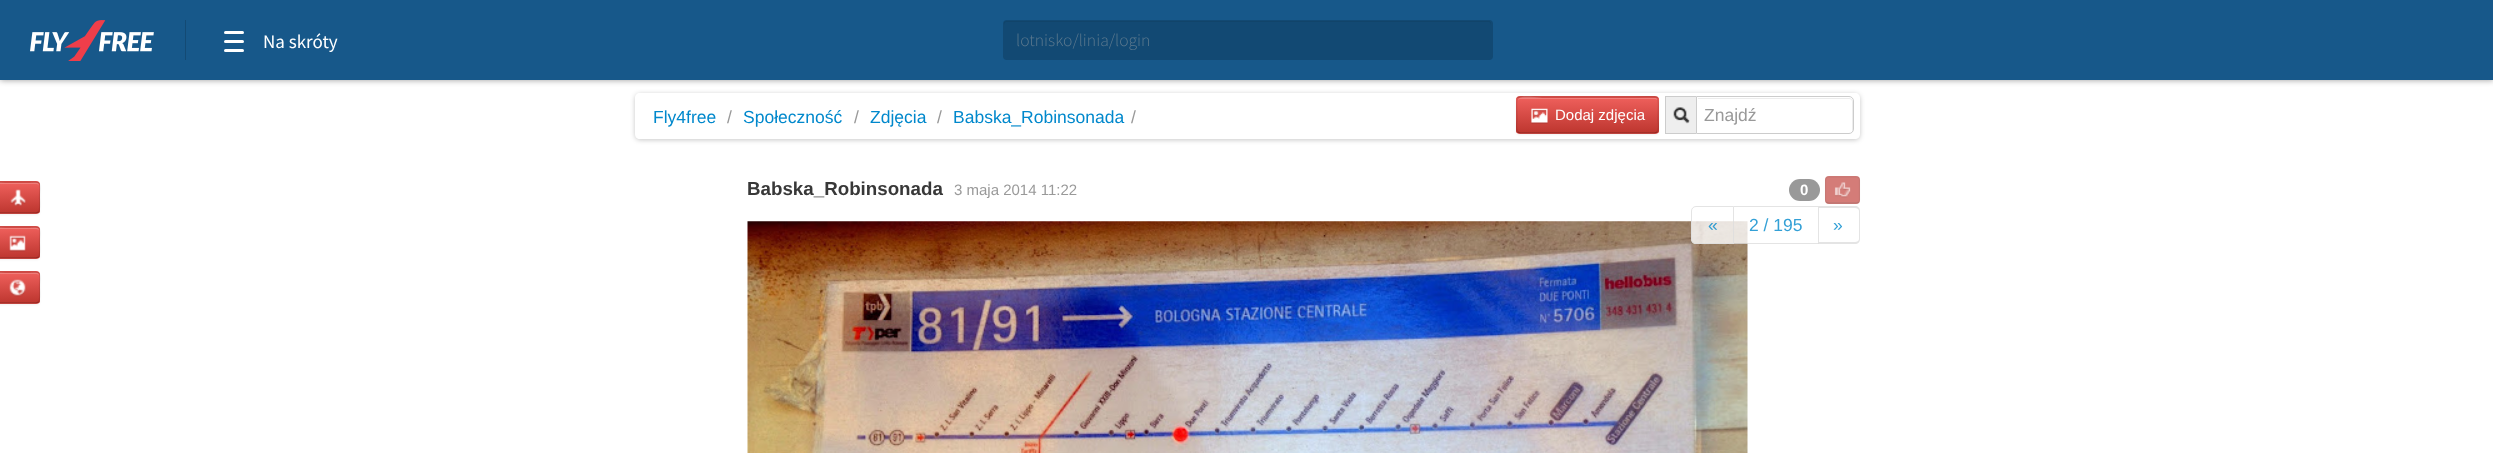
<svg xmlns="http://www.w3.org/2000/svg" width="2493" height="453">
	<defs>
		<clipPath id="clip1"><rect x="-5" y="181" width="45" height="33" rx="4" /></clipPath>
		<linearGradient id="g1" gradientUnits="userSpaceOnUse" x1="17" y1="183" x2="18" y2="213"><stop offset="0" stop-color="#EE5F5B" /><stop offset="1" stop-color="#BD362F" /></linearGradient>
		<clipPath id="clip2"><rect x="-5" y="226" width="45" height="33" rx="4" /></clipPath>
		<linearGradient id="g2" gradientUnits="userSpaceOnUse" x1="17" y1="228" x2="18" y2="258"><stop offset="0" stop-color="#EE5F5B" /><stop offset="1" stop-color="#BD362F" /></linearGradient>
		<clipPath id="clip3"><rect x="-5" y="271" width="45" height="33" rx="4" /></clipPath>
		<linearGradient id="g3" gradientUnits="userSpaceOnUse" x1="17" y1="273" x2="18" y2="303"><stop offset="0" stop-color="#EE5F5B" /><stop offset="1" stop-color="#BD362F" /></linearGradient>
		<clipPath id="clip4"><path d="M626 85H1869V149H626ZM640 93H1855C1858 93 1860 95 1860 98V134C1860 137 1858 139 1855 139H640C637 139 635 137 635 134V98C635 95 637 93 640 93Z" clip-rule="evenodd" /></clipPath>
		<clipPath id="clip5"><rect x="1516" y="96" width="143" height="38" rx="4" /></clipPath>
		<linearGradient id="g4" gradientUnits="userSpaceOnUse" x1="1588" y1="98" x2="1588" y2="133"><stop offset="0" stop-color="#EE5F5B" /><stop offset="1" stop-color="#BD362F" /></linearGradient>
	</defs>
	<rect width="100%" height="100%" fill="#FFFFFF" />
	<rect x="0" y="0" width="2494" height="80" fill="#000000" fill-opacity="0.4" filter="blur(3px)" />
	<rect x="0" y="0" width="2493" height="80" fill="#17588A" />
	<image x="30" y="20" width="124" height="41" href="assets/img1.png" />
	<rect x="185" y="20" width="1" height="40" fill="#134A74" />
	<rect x="224" y="49" width="20" height="3" rx="1.5" fill="#FFFFFF" />
	<rect x="224" y="31" width="20" height="3" rx="1.5" fill="#FFFFFF" />
	<rect x="224" y="40" width="20" height="3" rx="1.5" fill="#FFFFFF" />
	<text x="263" y="48" font-family="Source Sans Pro" font-size="19" fill="#FFFFFF">Na skróty</text>
	<rect x="1003" y="20" width="490" height="40" rx="4" fill="#124973" />
	<path d="M1006 22H1489C1490 22 1491 24 1491 25C1491 23 1491 21 1488 21H1006L1004 22V25C1004 24 1005 22 1006 22Z" fill="#11446A" />
	<text x="1016" y="46" font-family="Source Sans Pro" font-size="17.5" font-weight="300" fill="#5E7A8F">lotnisko/linia/login</text>
	<rect x="-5" y="183" width="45" height="32" rx="4" fill="#000000" fill-opacity="0.05" filter="blur(1px)" />
	<rect x="-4" y="181" width="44" height="33" rx="4" fill="#DA4F49" />
	<g clip-path="url(#clip1)">
		<rect x="0" y="183" width="40" height="30" fill="url(#g1)" />
	</g>
	<path d="M-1 184H36C38 184 39 185 39 186C39 181 33 183 30 183H5C2 183-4 181-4 186C-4 185-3 184-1 184Z" fill="#FFFFFF" fill-opacity="0.2" />
	<path d="M38.5 212L36 213H-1L-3.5 212" fill="none" stroke="#000000" stroke-opacity="0.25" stroke-width="1.2" />
	<path d="M-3.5 212C-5.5 210-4.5 200.5-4.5 197.5C-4.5 183-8 182 5 182H30C43 182 39.5 183 39.5 197.5C39.5 200.5 40.5 210 38.5 212" fill="none" stroke="#000000" stroke-opacity="0.1" stroke-width="1.2" />
	<image x="10" y="189" width="16" height="17" href="assets/img2.png" />
	<rect x="-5" y="228" width="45" height="32" rx="4" fill="#000000" fill-opacity="0.05" filter="blur(1px)" />
	<rect x="-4" y="226" width="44" height="33" rx="4" fill="#DA4F49" />
	<g clip-path="url(#clip2)">
		<rect x="0" y="228" width="40" height="30" fill="url(#g2)" />
	</g>
	<path d="M-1 229H36C38 229 39 230 39 231C39 226 33 228 30 228H5C2 228-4 226-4 231C-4 230-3 229-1 229Z" fill="#FFFFFF" fill-opacity="0.2" />
	<path d="M38.5 257L36 258H-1L-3.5 257" fill="none" stroke="#000000" stroke-opacity="0.25" stroke-width="1.2" />
	<path d="M-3.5 257C-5.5 255-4.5 245.5-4.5 242.5C-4.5 228-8 227 5 227H30C43 227 39.5 228 39.5 242.5C39.5 245.5 40.5 255 38.5 257" fill="none" stroke="#000000" stroke-opacity="0.1" stroke-width="1.2" />
	<image x="9" y="235" width="17" height="17" href="assets/img3.png" />
	<rect x="-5" y="273" width="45" height="32" rx="4" fill="#000000" fill-opacity="0.05" filter="blur(1px)" />
	<rect x="-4" y="271" width="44" height="33" rx="4" fill="#DA4F49" />
	<g clip-path="url(#clip3)">
		<rect x="0" y="273" width="40" height="30" fill="url(#g3)" />
	</g>
	<path d="M-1 274H36C38 274 39 275 39 276C39 271 33 273 30 273H5C2 273-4 271-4 276C-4 275-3 274-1 274Z" fill="#FFFFFF" fill-opacity="0.2" />
	<path d="M38.5 302L36 303H-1L-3.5 302" fill="none" stroke="#000000" stroke-opacity="0.25" stroke-width="1.2" />
	<path d="M-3.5 302C-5.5 300-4.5 290.5-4.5 287.5C-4.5 273-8 272 5 272H30C43 272 39.5 273 39.5 287.5C39.5 290.5 40.5 300 38.5 302" fill="none" stroke="#000000" stroke-opacity="0.1" stroke-width="1.2" />
	<image x="9" y="279" width="17" height="18" href="assets/img4.png" />
	<g clip-path="url(#clip4)">
		<rect x="635" y="94" width="1225" height="46" rx="5" fill="#000000" fill-opacity="0.22" filter="blur(2.5px)" />
	</g>
	<text x="653" y="123" font-family="Liberation Sans" font-size="17.5" fill="#0088CC">Fly4free</text>
	<text x="727" y="123" font-family="Liberation Sans" font-size="17.5" fill="#999999">/</text>
	<text x="743" y="123" font-family="Liberation Sans" font-size="17.5" fill="#0088CC">Społeczność</text>
	<text x="854" y="123" font-family="Liberation Sans" font-size="17.5" fill="#999999">/</text>
	<text x="870" y="123" font-family="Liberation Sans" font-size="17.5" fill="#0088CC">Zdjęcia</text>
	<text x="937" y="123" font-family="Liberation Sans" font-size="17.5" fill="#999999">/</text>
	<text x="953" y="123" font-family="Liberation Sans" font-size="17.5" fill="#0088CC">Babska_Robinsonada</text>
	<text x="1131" y="123" font-family="Liberation Sans" font-size="17.5" fill="#999999">/</text>
	<rect x="1516" y="98" width="143" height="37" rx="4" fill="#000000" fill-opacity="0.05" filter="blur(1px)" />
	<rect x="1516" y="96" width="143" height="38" rx="4" fill="#DA4F49" />
	<g clip-path="url(#clip5)">
		<rect x="1516" y="98" width="143" height="35" fill="url(#g4)" />
	</g>
	<path d="M1520 99H1655C1656 99 1658 100 1658 101L1657 99L1656 98H1543C1540 98 1518 93 1518 101C1518 100 1519 99 1520 99Z" fill="#FFFFFF" fill-opacity="0.2" />
	<path d="M1657 132L1655 133H1520L1518 132" fill="none" stroke="#000000" stroke-opacity="0.25" stroke-width="1.2" />
	<path d="M1518 132C1515.5 130 1517 122.5 1517 120C1517 91 1511.5 97 1542.5 97H1632.5C1663.5 97 1658 91 1658 120C1658 122.5 1659.5 130 1657 132" fill="none" stroke="#000000" stroke-opacity="0.1" stroke-width="1.2" />
	<image x="1531" y="108" width="17" height="16" href="assets/img5.png" />
	<text x="1555" y="120" font-family="Liberation Sans" font-size="15" fill="#FFFFFF">Dodaj zdjęcia</text>
	<rect x="1666" y="97" width="30" height="36" fill="#EEEEEE" />
	<rect x="1665.5" y="96.5" width="32" height="37" fill="none" stroke="#CCCCCC" />
	<image x="1673" y="107" width="17" height="17" href="assets/img6.png" />
	<path d="M1696 96H1849C1852 96 1854 98 1854 101V129C1854 132 1852 134 1849 134H1696Z" fill="#FFFFFF" />
	<path d="M1698 99H1849C1851 99 1852 100 1852 102V132C1852 131 1853 130 1853 129V102C1853 100 1851 98 1849 98H1698Z" fill="#ECECEC" />
	<path d="M1696.5 96.5H1849C1851.5 96.5 1853.5 98.5 1853.5 101V129C1853.5 131.5 1851.5 133.5 1849 133.5H1696.5Z" fill="none" stroke="#CCCCCC" />
	<text x="1704" y="121" font-family="Liberation Sans" font-size="17.5" fill="#999999">Znajdź</text>
	<text x="747" y="195" font-family="Liberation Sans" font-size="18.75" font-weight="700" fill="#383838">Babska_Robinsonada</text>
	<text x="954" y="195" font-family="Liberation Sans" font-size="15" fill="#999999">3 maja 2014 11:22</text>
	<rect x="1789" y="179" width="31" height="22" rx="11" fill="#999999" />
	<text x="1800" y="195" font-family="Liberation Sans" font-size="15" font-weight="700" fill="#FFFFFF">0</text>
	<rect x="1825" y="176" width="35" height="28" rx="4" fill="#D47C78" />
	<path d="M1858.5 202C1858 203 1857 203 1856 203H1829C1828 203 1827 203 1826.5 202" fill="none" stroke="#595959" stroke-opacity="0.25" stroke-width="1.2" />
	<path d="M1826.5 202C1826 201.5 1825.5 201 1825.5 200V180C1825.5 179 1826 178.5 1826.5 178C1827 177 1828 177 1829 177H1856C1857 177 1858 177 1858.5 178C1859 178.5 1859.5 179 1859.5 180V200C1859.5 201 1859 201.5 1858.5 202" fill="none" stroke="#595959" stroke-opacity="0.1" stroke-width="1.2" />
	<image x="1834" y="182" width="17" height="16" href="assets/img7.png" />
	<image x="747" y="221" width="1001" height="232" href="assets/img8.png" />
	<path d="M1696 206H1734V244H1696C1693 244 1691 242 1691 239V211C1691 208 1693 206 1696 206Z" fill="#FFFFFF" fill-opacity="0.8" />
	<path d="M1696 206.5H1733.5V243.5H1696C1693.5 243.5 1691.5 241.5 1691.5 239V211C1691.5 208.5 1693.5 206.5 1696 206.5Z" fill="none" stroke="#DDDDDD" stroke-opacity="0.8" />
	<text x="1708" y="231" font-family="Liberation Sans" font-size="17.5" fill="#2F9BD0">«</text>
	<rect x="1734" y="221" width="14" height="22" fill="#FFFFFF" fill-opacity="0.8" />
	<rect x="1734" y="206" width="85" height="1" fill="#E4E4E4" />
	<rect x="1818" y="206" width="1" height="38" fill="#E4E4E4" />
	<rect x="1734" y="243" width="85" height="1" fill="#DDDDDD" fill-opacity="0.8" />
	<text x="1749" y="231" font-family="Liberation Sans" font-size="17.5" fill="#33A0D6">2 / 195</text>
	<path d="M1819 206H1855C1858 206 1860 208 1860 211V239C1860 242 1858 244 1855 244H1819ZM1819 208H1855C1857 208 1859 209 1859 211V239C1859 241 1857 242 1855 242H1819Z" fill="#E4E4E4" fill-rule="evenodd" />
	<text x="1833" y="231" font-family="Liberation Sans" font-size="17.5" fill="#33A0D6">»</text>
</svg>
